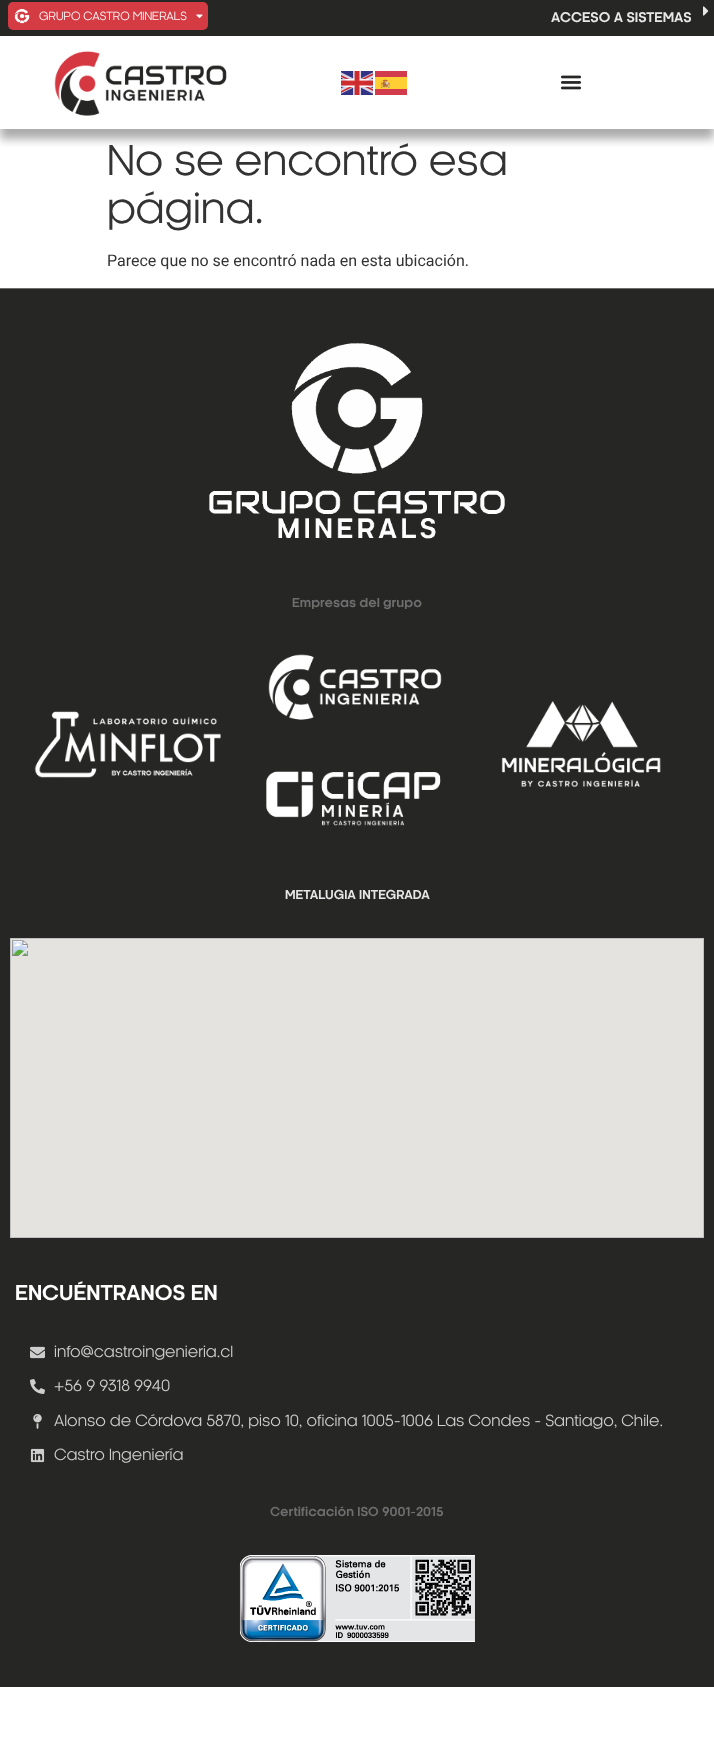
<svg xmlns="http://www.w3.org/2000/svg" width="714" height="1764">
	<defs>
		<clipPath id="clip1"><rect x="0" y="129" width="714" height="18" /></clipPath>
	</defs>
	<rect width="100%" height="100%" fill="#FFFFFF" />
	<rect x="0" y="0" width="714" height="36" fill="#262625" />
	<g clip-path="url(#clip1)">
		<rect x="0" y="46" width="714" height="93" fill="#000000" fill-opacity="0.33" filter="blur(5px)" />
	</g>
	<rect x="8" y="2" width="200" height="28" rx="5" fill="#D43B43" />
	<image x="14" y="8" width="16" height="16" href="assets/img1.png" />
	<text x="39" y="20" font-family="'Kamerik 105'" font-size="11" fill="#FFFFFF">GRUPO CASTRO MINERALS</text>
	<image x="196" y="14" width="7" height="5" href="assets/img2.png" />
	<image x="560" y="75" width="22" height="15" href="assets/img3.png" />
	<image x="54" y="51" width="173" height="65" href="assets/img4.png" />
	<image x="341" y="71" width="32" height="24" href="assets/img5.png" />
	<image x="375" y="71" width="32" height="24" href="assets/img6.png" />
	<image x="703" y="6" width="6" height="10" href="assets/img7.png" />
	<text x="551" y="22" font-family="'Kamerik 105'" font-size="13" font-weight="700" fill="#E7E7E7">ACCESO A SISTEMAS</text>
	<g font-family="'Kamerik 105'" font-size="40" fill="#333333">
		<text x="107" y="175">No se encontró esa</text>
		<text x="107" y="223">página.</text>
	</g>
	<text x="107" y="266" font-family="Roboto" font-size="16" fill="#333333">Parece que no se encontró nada en esta ubicación.</text>
	<rect x="0" y="289" width="714" height="1398" fill="#262625" />
	<rect x="0" y="288" width="714" height="1" fill="#6E6E6E" />
	<image x="209" y="342" width="296" height="197" href="assets/img8.png" />
	<text x="292" y="607" font-family="'Kamerik 105'" font-size="12" font-weight="700" fill="#6E6E6E">Empresas del grupo</text>
	<image x="34" y="711" width="187" height="67" href="assets/img9.png" />
	<image x="268" y="654" width="174" height="66" href="assets/img10.png" />
	<image x="266" y="771" width="175" height="55" href="assets/img11.png" />
	<image x="501" y="701" width="160" height="87" href="assets/img12.png" />
	<text x="285" y="899" font-family="'Kamerik 105'" font-size="12" font-weight="700" fill="#E7E7E7">METALUGIA INTEGRADA</text>
	<image x="10" y="938" width="694" height="300" href="assets/img13.png" />
	<text x="15" y="1300" font-family="'Kamerik 105'" font-size="20" font-weight="700" fill="#FFFFFF">ENCUÉNTRANOS EN</text>
	<image x="30" y="1346" width="15" height="13" href="assets/img14.png" />
	<text x="54" y="1357" font-family="'Kamerik 105'" font-size="15" fill="#CECECE">info@castroingenieria.cl</text>
	<image x="30" y="1379" width="15" height="15" href="assets/img15.png" />
	<text x="54" y="1391" font-family="'Kamerik 105'" font-size="15" fill="#CECECE">+56 9 9318 9940</text>
	<image x="33" y="1414" width="9" height="15" href="assets/img16.png" />
	<text x="54" y="1426" font-family="'Kamerik 105'" font-size="15" fill="#CECECE">Alonso de Córdova 5870, piso 10, oficina 1005-1006 Las Condes - Santiago, Chile.</text>
	<image x="30" y="1448" width="15" height="15" href="assets/img17.png" />
	<text x="54" y="1460" font-family="'Kamerik 105'" font-size="15" fill="#CECECE">Castro Ingeniería</text>
	<text x="270" y="1516" font-family="'Kamerik 105'" font-size="12" font-weight="700" fill="#6E6E6E">Certificación ISO 9001-2015</text>
	<image x="239" y="1555" width="236" height="87" href="assets/img18.png" />
</svg>
